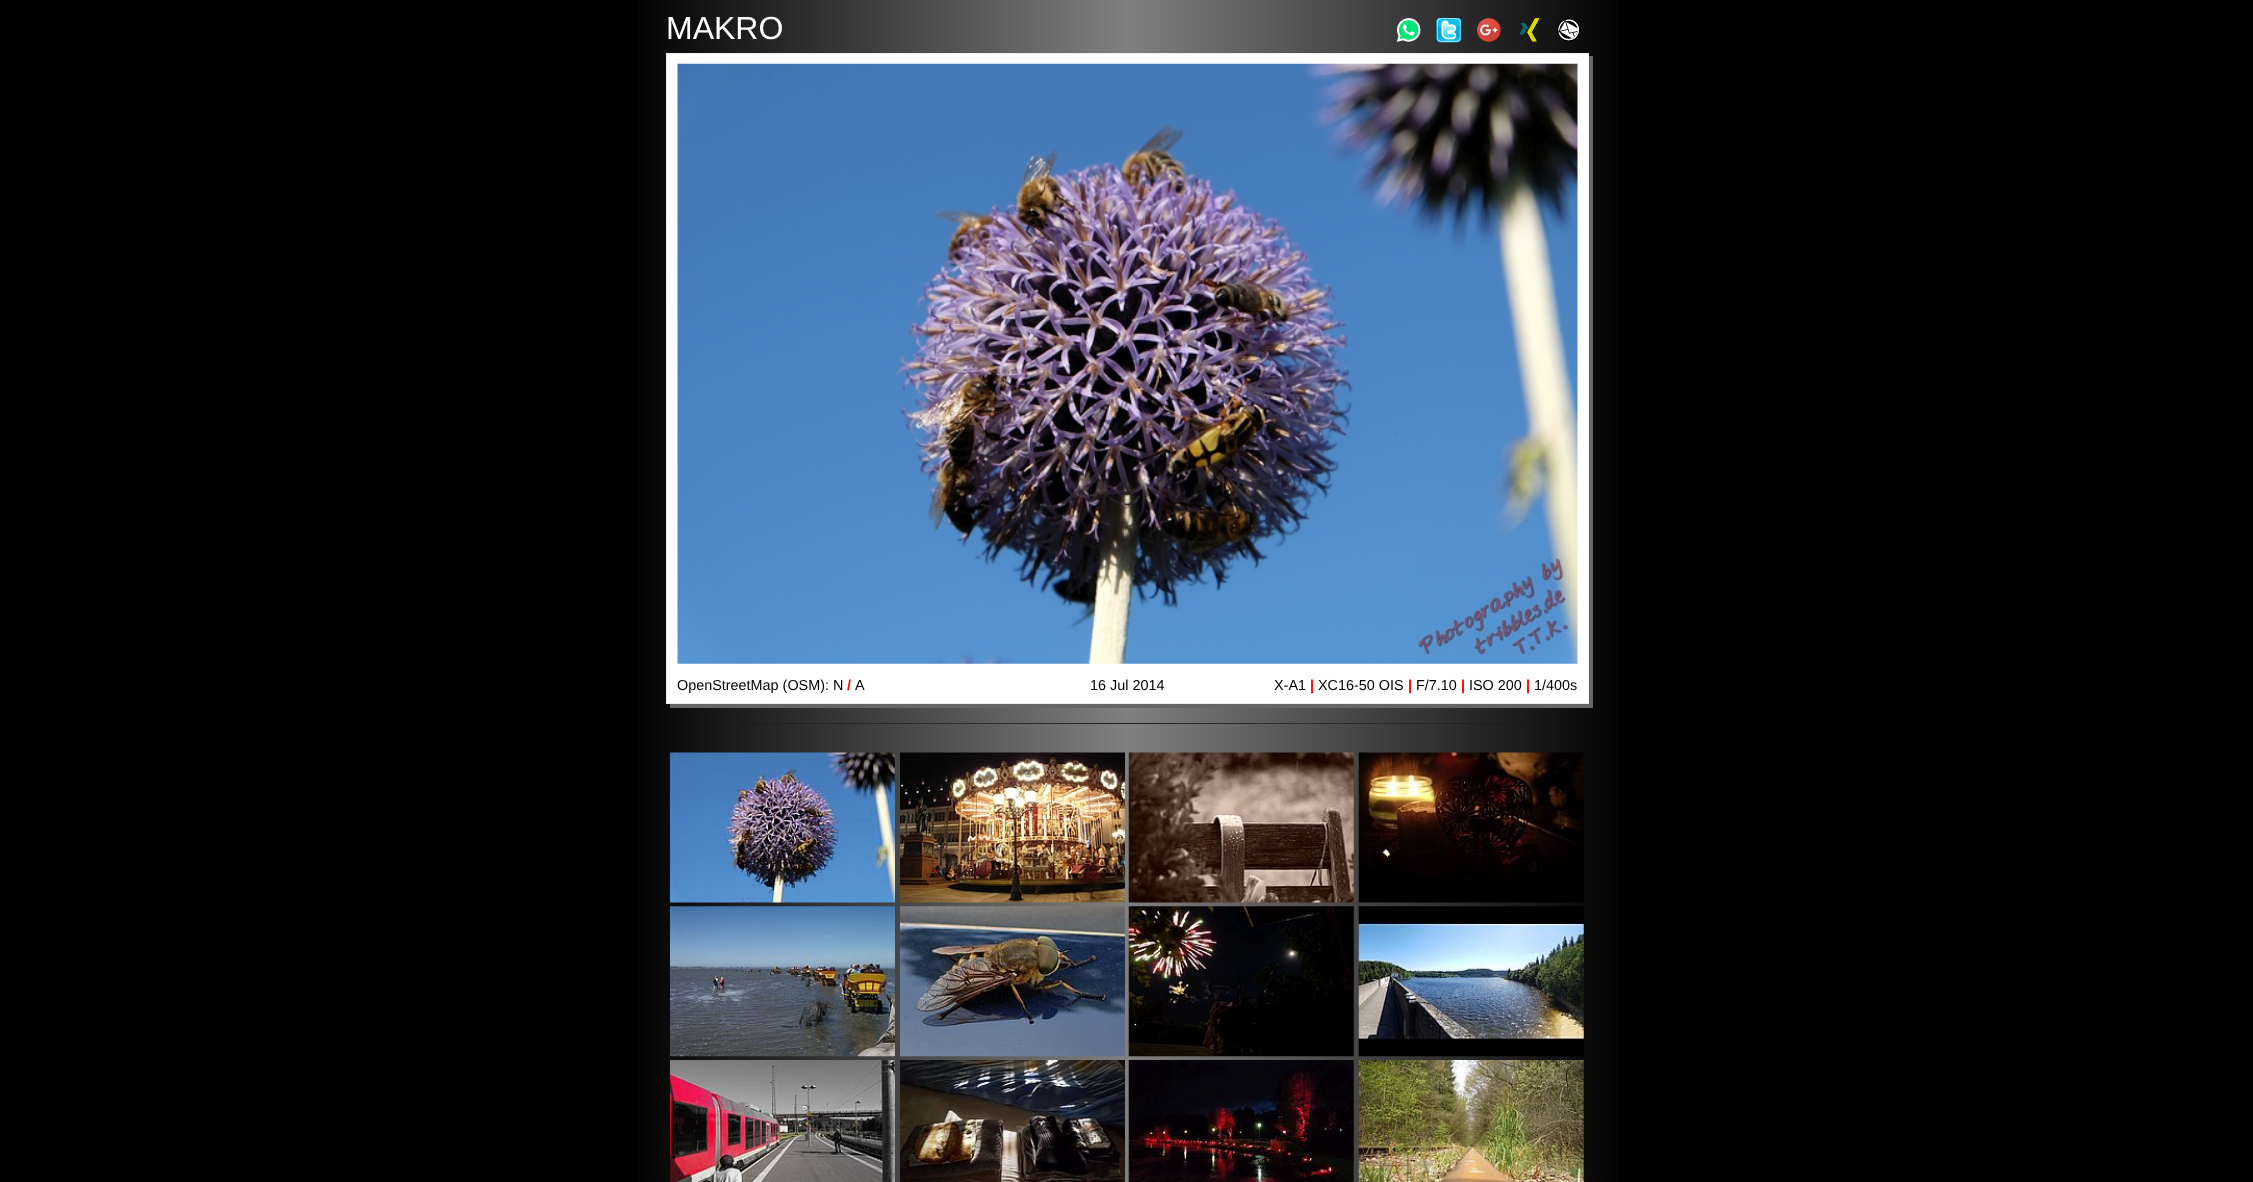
<svg xmlns="http://www.w3.org/2000/svg" width="2253" height="1182">
	<defs>
		<linearGradient id="g1" gradientUnits="userSpaceOnUse" x1="627" y1="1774" x2="1628" y2="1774"><stop offset="0" stop-color="#000000" /><stop offset="0.5" stop-color="#808080" /><stop offset="1" stop-color="#000000" /></linearGradient>
		<linearGradient id="g2" gradientUnits="userSpaceOnUse" x1="666" y1="723" x2="1589" y2="723"><stop offset="0" stop-color="#000000" stop-opacity="0" /><stop offset="0.5" stop-color="#000000" stop-opacity="0.75" /><stop offset="1" stop-color="#000000" stop-opacity="0" /></linearGradient>
	</defs>
	<rect width="100%" height="100%" fill="#000000" />
	<rect x="637" y="0" width="981" height="1182" fill="url(#g1)" />
	<text x="666" y="39" font-family="Liberation Sans" font-size="32" fill="#FFFFFF">MAKRO</text>
	<image x="1396" y="18" width="25" height="24" href="assets/img1.png" />
	<image x="1436" y="18" width="25" height="25" href="assets/img2.png" />
	<image x="1477" y="18" width="24" height="24" href="assets/img3.png" />
	<image x="1519" y="18" width="21" height="24" href="assets/img4.png" />
	<image x="1557" y="18" width="23" height="24" href="assets/img5.png" />
	<path d="M670 704V708H1593V56H1589V704Z" fill="#666666" />
	<rect x="666.5" y="53.5" width="922" height="650" fill="#FFFFFF" stroke="#EEEEEE" />
	<image x="677" y="63" width="901" height="601" href="assets/img6.png" />
	<text x="677" y="690" font-family="Liberation Sans" font-size="14.4" fill="#000000">OpenStreetMap (OSM): N</text>
	<text x="847" y="690" font-family="Liberation Sans" font-size="14.4" font-weight="700" fill="#FF0000">/</text>
	<g font-family="Liberation Sans" font-size="14.4" fill="#000000">
		<text x="855" y="690">A</text>
		<text x="1090" y="690">16 Jul 2014</text>
		<text x="1274" y="690">X-A1</text>
	</g>
	<text x="1310" y="690" font-family="Liberation Sans" font-size="14.4" font-weight="700" fill="#FF0000">|</text>
	<text x="1318" y="690" font-family="Liberation Sans" font-size="14.4" fill="#000000">XC16-50 OIS</text>
	<text x="1408" y="690" font-family="Liberation Sans" font-size="14.4" font-weight="700" fill="#FF0000">|</text>
	<text x="1416" y="690" font-family="Liberation Sans" font-size="14.4" fill="#000000">F/7.10</text>
	<text x="1461" y="690" font-family="Liberation Sans" font-size="14.4" font-weight="700" fill="#FF0000">|</text>
	<text x="1469" y="690" font-family="Liberation Sans" font-size="14.4" fill="#000000">ISO 200</text>
	<text x="1526" y="690" font-family="Liberation Sans" font-size="14.4" font-weight="700" fill="#FF0000">|</text>
	<text x="1534" y="690" font-family="Liberation Sans" font-size="14.4" fill="#000000">1/400s</text>
	<rect x="728" y="723" width="799" height="1" fill="url(#g2)" />
	<image x="670" y="752" width="225" height="151" href="assets/img7.png" />
	<image x="900" y="752" width="225" height="151" href="assets/img8.png" />
	<image x="1128" y="752" width="226" height="151" href="assets/img9.png" />
	<image x="1358" y="752" width="226" height="151" href="assets/img10.png" />
	<image x="670" y="906" width="225" height="151" href="assets/img11.png" />
	<image x="900" y="906" width="225" height="151" href="assets/img12.png" />
	<image x="1128" y="906" width="226" height="151" href="assets/img13.png" />
	<image x="1358" y="906" width="226" height="151" href="assets/img14.png" />
	<image x="670" y="1060" width="225" height="122" href="assets/img15.png" />
	<image x="900" y="1060" width="225" height="122" href="assets/img16.png" />
	<image x="1128" y="1060" width="226" height="122" href="assets/img17.png" />
	<image x="1358" y="1060" width="226" height="122" href="assets/img18.png" />
</svg>
